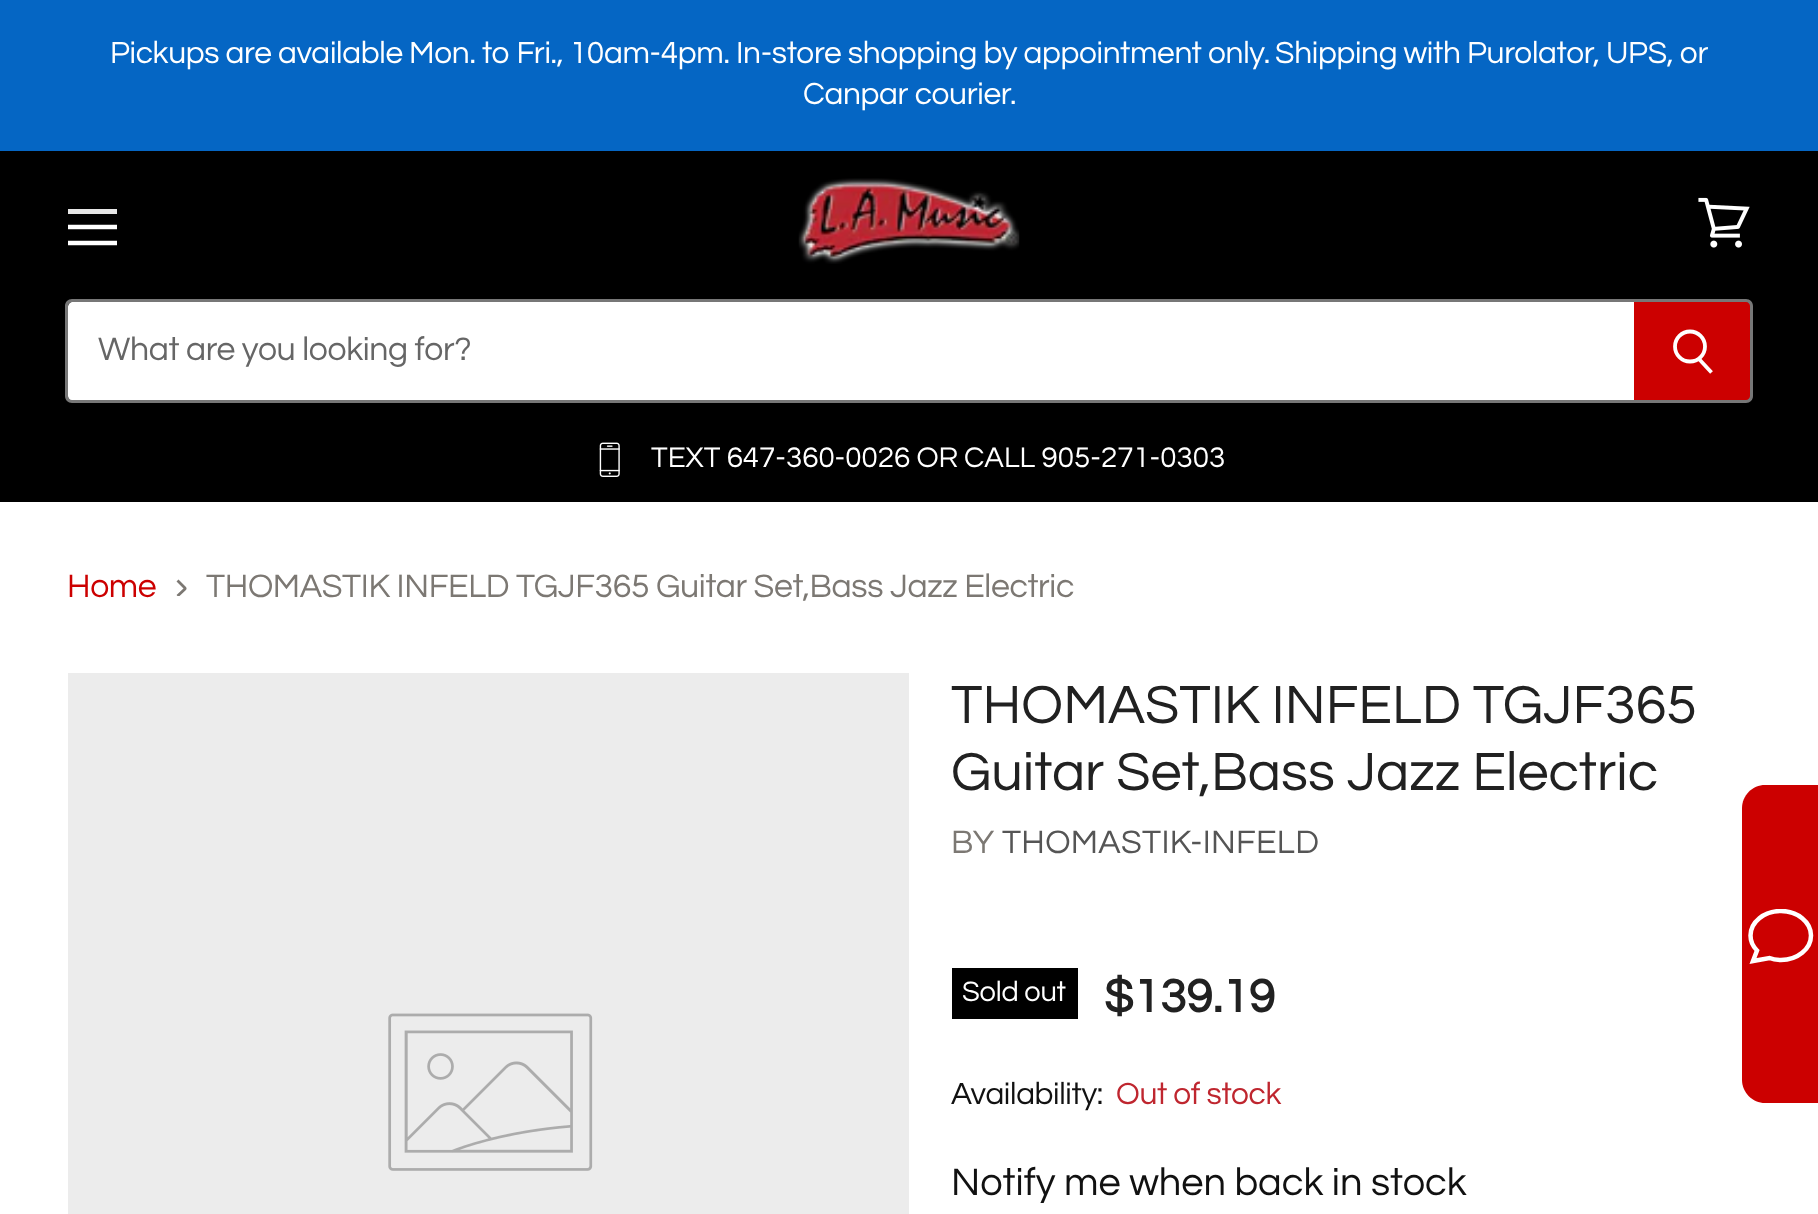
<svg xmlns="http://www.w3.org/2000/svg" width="1818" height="1214">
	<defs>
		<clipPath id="clip1"><rect x="68" y="207" width="49" height="41" /></clipPath>
		<clipPath id="clip2"><path d="M175.5 596V578H186.5V596Z" /></clipPath>
		<clipPath id="clip3"><rect x="1748" y="909" width="66" height="56" /></clipPath>
	</defs>
	<rect width="100%" height="100%" fill="#FFFFFF" />
	<rect x="0" y="0" width="1818" height="151" fill="#0566C4" />
	<g font-family="Questrial" font-size="31.65" letter-spacing="-0.32" fill="#FFFFFF">
		<text x="110" y="63">Pickups are available Mon. to Fri., 10am-4pm. In-store shopping by appointment only.</text>
		<text x="1275" y="63">Shipping with Purolator, UPS, or</text>
		<text x="803" y="104">Canpar courier.</text>
	</g>
	<rect x="0" y="151" width="1818" height="351" fill="#000000" />
	<rect x="68" y="209" width="49" height="5" fill="#E6E6E6" />
	<g clip-path="url(#clip1)">
		<path d="M115 227H70M115 243H70" fill="none" stroke="#FFFFFF" stroke-width="4.5" stroke-linecap="square" stroke-linejoin="round" />
	</g>
	<image x="1698" y="197" width="52" height="51" href="assets/img1.png" />
	<image x="798" y="178" width="222" height="86" href="assets/img2.png" />
	<path d="M73 302H1634V401H73C70 401 68 399 68 396V307C68 304 70 302 73 302Z" fill="#FFFFFF" />
	<path d="M72 299H1634V403H72C68 403 65 400 65 396V306C65 302 68 299 72 299ZM72 302H1634V400H72C70 400 68 398 68 396V306C68 304 70 302 72 302Z" fill="#777777" fill-rule="evenodd" />
	<text x="98" y="360" font-family="Questrial" font-size="33.75" letter-spacing="-0.35" fill="#666666">What are you looking for?</text>
	<path d="M1634 302H1746C1749 302 1751 304 1751 307V396C1751 399 1749 401 1746 401H1634Z" fill="#CC0000" />
	<path d="M1634 299H1746C1750 299 1753 302 1753 306V396C1753 400 1750 403 1746 403H1634ZM1634 302H1746C1748 302 1750 304 1750 306V396C1750 398 1748 400 1746 400H1634Z" fill="#777777" fill-rule="evenodd" />
	<path d="M1711.5 372.5L1699 359" fill="none" stroke="#FFFFFF" stroke-width="3.8" />
	<circle cx="1690" cy="346.5" r="15" fill="none" stroke="#FFFFFF" stroke-width="3.8" />
	<image x="599" y="442" width="21" height="35" href="assets/img3.png" />
	<g font-family="Questrial" font-size="29.5" fill="#FFFFFF">
		<text x="651" y="467">TEXT 647-360-0026 OR</text>
		<text x="964" y="467">CALL 905-271-0303</text>
	</g>
	<text x="67" y="597" font-family="Questrial" font-size="33.75" letter-spacing="-0.35" fill="#CC0000">Home</text>
	<g clip-path="url(#clip2)">
		<path d="M177.5 596L185.5 588.5L177.5 580.5" fill="none" stroke="#7C7873" stroke-width="2.8" />
	</g>
	<text x="206" y="597" font-family="Questrial" font-size="33.75" letter-spacing="-0.35" fill="#7C7873">THOMASTIK INFELD TGJF365 Guitar Set,Bass Jazz Electric</text>
	<rect x="68" y="673" width="841" height="541" fill="#ECECEC" />
	<image x="388" y="1013" width="205" height="158" href="assets/img4.png" />
	<g font-family="Questrial" font-size="55.75" fill="#212121">
		<text x="951" y="723">THOMASTIK INFELD TGJF365</text>
		<text x="951" y="790">Guitar Set,Bass Jazz Electric</text>
	</g>
	<text x="951" y="853" font-family="Questrial" font-size="33.75" letter-spacing="0.3" fill="#7C7873">BY</text>
	<text x="1002" y="853" font-family="Questrial" font-size="33.75" letter-spacing="0.3" fill="#555555">THOMASTIK-INFELD</text>
	<rect x="952" y="968" width="126" height="51" fill="#000000" />
	<text x="962" y="1001" font-family="Questrial" font-size="29" letter-spacing="-0.25" fill="#FFFFFF">Sold out</text>
	<text x="1104" y="1012" font-family="Questrial" font-size="48" font-weight="700" fill="#212121">$139.19</text>
	<text x="951" y="1104" font-family="Questrial" font-size="31.65" letter-spacing="-0.35" fill="#111111">Availability:</text>
	<text x="1116" y="1104" font-family="Questrial" font-size="31.65" letter-spacing="-0.35" fill="#BF262F">Out of stock</text>
	<text x="951" y="1195" font-family="Questrial" font-size="39.75" fill="#111111">Notify me when back in stock</text>
	<path d="M1765 785H1818V1103H1765C1752.5 1103 1742 1092.5 1742 1080V808C1742 795.5 1752.5 785 1765 785Z" fill="#CC0000" />
	<g clip-path="url(#clip3)">
		<path d="M1757 950.5C1753 946.5 1750.5 941.5 1750.5 935.5C1750.5 922 1764 911 1781 911C1797.5 911 1811 922 1811 935.5C1811 949 1797.5 960 1781 960C1777 960 1773 959.5 1769.5 958L1753 961Z" fill="none" stroke="#FFFFFF" stroke-width="4.5" />
	</g>
</svg>
